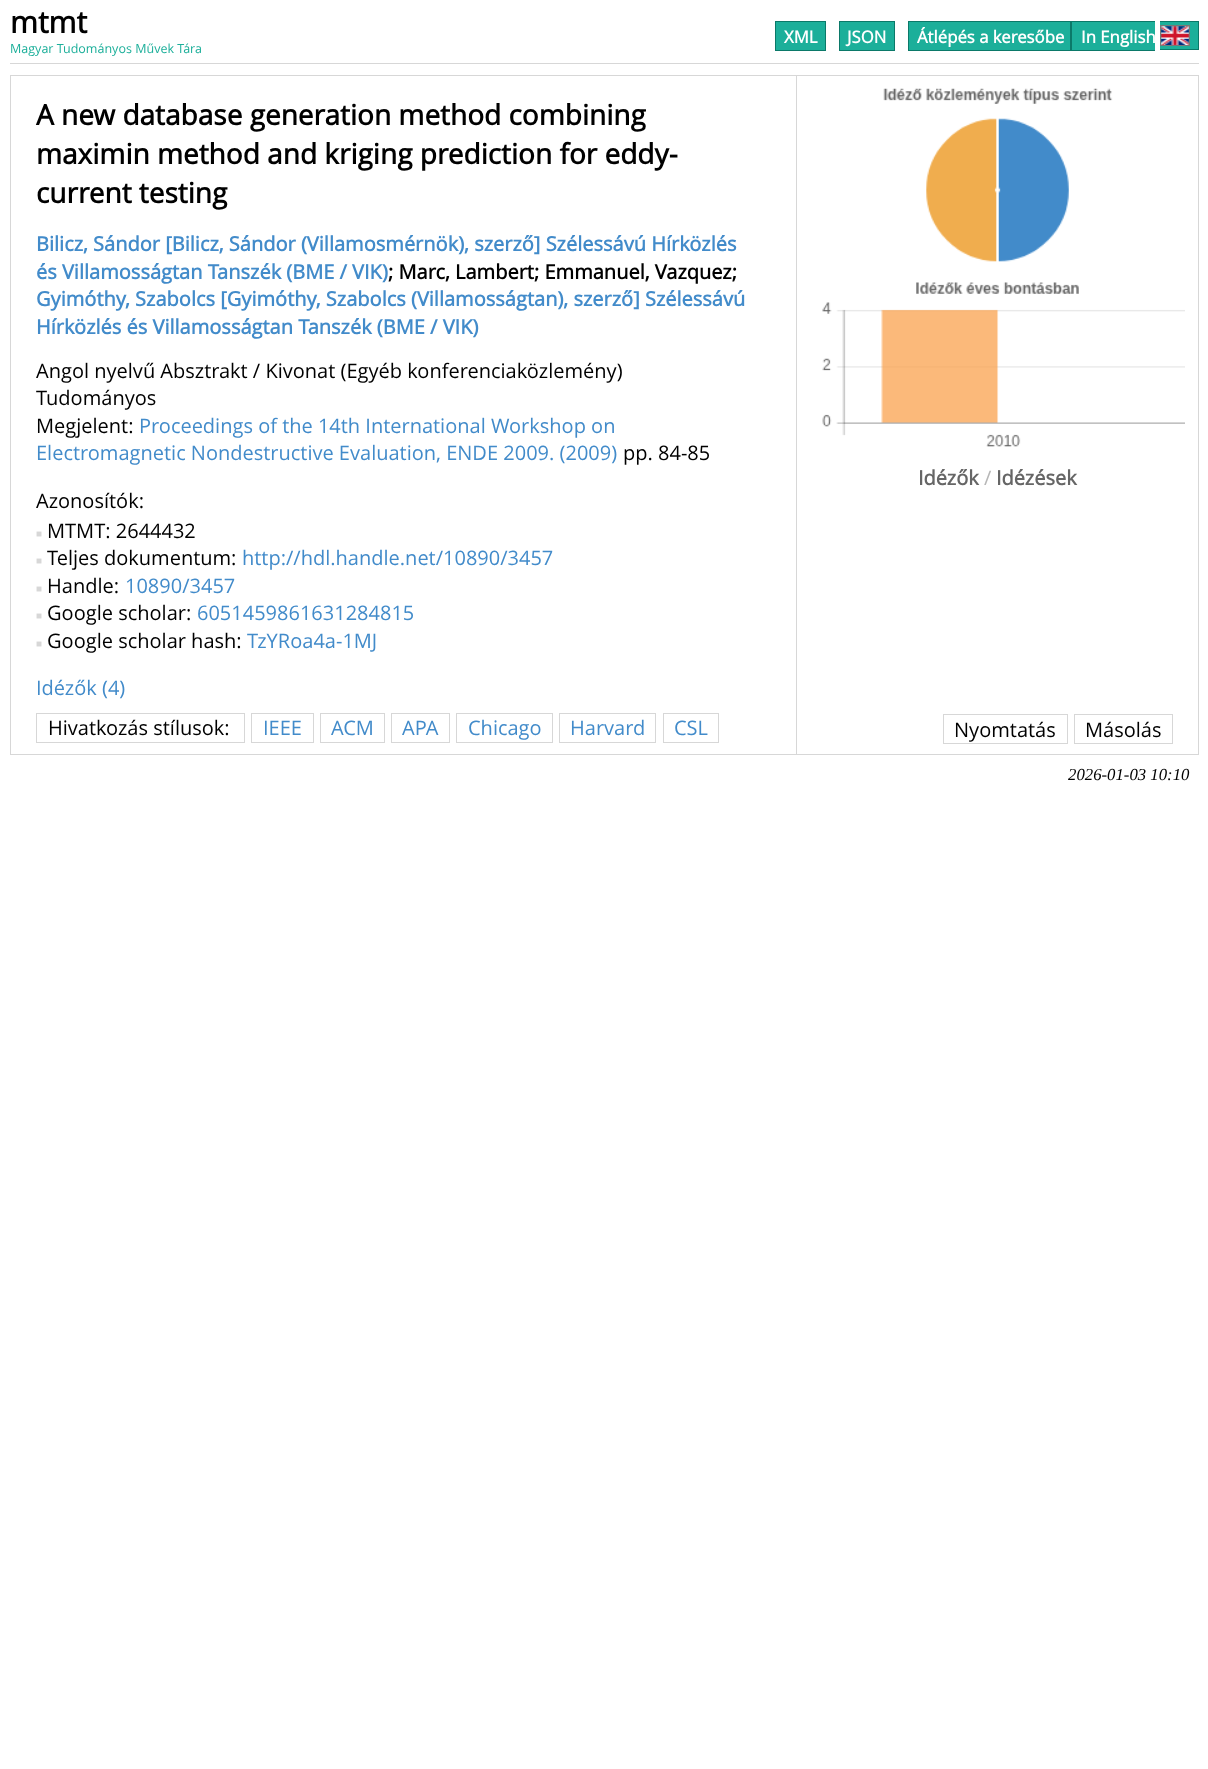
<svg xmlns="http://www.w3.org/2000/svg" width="1208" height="1769">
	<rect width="100%" height="100%" fill="#FFFFFF" />
	<rect x="10" y="63" width="1189" height="1" fill="#D7D7D7" />
	<text x="10" y="33" font-family="Open Sans" font-size="30" font-weight="700" fill="#000000">mtmt</text>
	<text x="10" y="53" font-family="Open Sans" font-size="12.5" fill="#1CAF9A">Magyar Tudományos Művek Tára</text>
	<rect x="775.5" y="21.5" width="50" height="29" fill="#1CAF9A" stroke="#0B7969" />
	<text x="784" y="43" font-family="Open Sans" font-size="16.75" font-weight="700" fill="#FFFFFF">XML</text>
	<rect x="839.5" y="21.5" width="55" height="29" fill="#1CAF9A" stroke="#0B7969" />
	<text x="847" y="43" font-family="Open Sans" font-size="16.75" font-weight="700" fill="#FFFFFF">JSON</text>
	<rect x="908.5" y="21.5" width="162" height="29" fill="#1CAF9A" stroke="#0B7969" />
	<text x="917" y="43" font-family="Open Sans" font-size="16.75" font-weight="700" fill="#FFFFFF">Átlépés a keresőbe</text>
	<rect x="1072" y="22" width="83" height="28" fill="#1CAF9A" />
	<text x="1081" y="43" font-family="Open Sans" font-size="16.75" font-weight="700" fill="#FFFFFF">In English</text>
	<rect x="1071" y="21" width="84" height="1" fill="#0B7969" />
	<rect x="1071" y="50" width="84" height="1" fill="#0B7969" />
	<rect x="1071" y="21" width="1" height="30" fill="#0B7969" />
	<rect x="1160" y="22" width="38" height="27" fill="#1CAF9A" />
	<rect x="1160" y="21" width="39" height="1" fill="#0B7969" />
	<rect x="1198" y="21" width="1" height="29" fill="#0B7969" />
	<rect x="1160" y="49" width="39" height="1" fill="#0B7969" />
	<rect x="1160.5" y="25.5" width="29" height="20" fill="none" stroke="#777777" />
	<image x="1161" y="26" width="28" height="19" href="assets/img1.png" />
	<rect x="10.5" y="75.5" width="1188" height="679" fill="none" stroke="#D7D7D7" />
	<g font-family="Open Sans" font-size="28" font-weight="700" fill="#000000">
		<text x="36" y="125">A new database generation method combining</text>
		<text x="36" y="164">maximin method and kriging prediction for eddy-</text>
		<text x="36" y="203">current testing</text>
	</g>
	<g font-family="Open Sans" font-size="20" font-weight="700" fill="#428BCA">
		<text x="36" y="251">Bilicz, Sándor [Bilicz, Sándor (Villamosmérnök), szerző] Szélessávú Hírközlés</text>
		<text x="36" y="279">és Villamosságtan Tanszék (BME / VIK)</text>
	</g>
	<text x="388" y="279" font-family="Open Sans" font-size="20" font-weight="700" fill="#000000">; Marc, Lambert; Emmanuel, Vazquez;</text>
	<g font-family="Open Sans" font-size="20" font-weight="700" fill="#428BCA">
		<text x="36" y="306">Gyimóthy, Szabolcs [Gyimóthy, Szabolcs (Villamosságtan), szerző] Szélessávú</text>
		<text x="36" y="334">Hírközlés és Villamosságtan Tanszék (BME / VIK)</text>
	</g>
	<g font-family="Open Sans" font-size="20" fill="#000000">
		<text x="36" y="378">Angol nyelvű Absztrakt / Kivonat (Egyéb konferenciaközlemény)</text>
		<text x="36" y="405">Tudományos</text>
		<text x="36" y="433">Megjelent:</text>
	</g>
	<g font-family="Open Sans" font-size="20" fill="#428BCA">
		<text x="139" y="433">Proceedings of the 14th International Workshop on</text>
		<text x="36" y="460">Electromagnetic Nondestructive Evaluation, ENDE 2009. (2009)</text>
	</g>
	<g font-family="Open Sans" font-size="20" fill="#000000">
		<text x="623" y="460">pp. 84-85</text>
		<text x="36" y="508">Azonosítók:</text>
	</g>
	<text x="36" y="537" font-family="Liberation Serif" font-size="10" fill="#D7D7D7">■</text>
	<text x="47" y="538" font-family="Open Sans" font-size="20" fill="#000000">MTMT: 2644432</text>
	<text x="36" y="564" font-family="Liberation Serif" font-size="10" fill="#D7D7D7">■</text>
	<text x="47" y="565" font-family="Open Sans" font-size="20" fill="#000000">Teljes dokumentum:</text>
	<text x="242" y="565" font-family="Open Sans" font-size="20" fill="#428BCA">http://hdl.handle.net/10890/3457</text>
	<text x="36" y="592" font-family="Liberation Serif" font-size="10" fill="#D7D7D7">■</text>
	<text x="47" y="593" font-family="Open Sans" font-size="20" fill="#000000">Handle:</text>
	<text x="125" y="593" font-family="Open Sans" font-size="20" fill="#428BCA">10890/3457</text>
	<text x="36" y="619" font-family="Liberation Serif" font-size="10" fill="#D7D7D7">■</text>
	<text x="47" y="620" font-family="Open Sans" font-size="20" fill="#000000">Google scholar:</text>
	<text x="197" y="620" font-family="Open Sans" font-size="20" fill="#428BCA">6051459861631284815</text>
	<text x="36" y="647" font-family="Liberation Serif" font-size="10" fill="#D7D7D7">■</text>
	<text x="47" y="648" font-family="Open Sans" font-size="20" fill="#000000">Google scholar hash:</text>
	<g font-family="Open Sans" font-size="20" fill="#428BCA">
		<text x="247" y="648">TzYRoa4a-1MJ</text>
		<text x="36" y="695">Idézők (4)</text>
	</g>
	<rect x="796" y="76" width="1" height="678" fill="#D7D7D7" />
	<image x="883" y="88" width="230" height="174" href="assets/img2.png" />
	<image x="822" y="282" width="363" height="165" href="assets/img3.png" />
	<text x="918" y="485" font-family="Open Sans" font-size="20" font-weight="700" fill="#666666">Idézők</text>
	<text x="984" y="485" font-family="Open Sans" font-size="20" fill="#B7B7B7">/</text>
	<text x="996" y="485" font-family="Open Sans" font-size="20" font-weight="700" fill="#666666">Idézések</text>
	<rect x="36.5" y="713.5" width="208" height="29" fill="none" stroke="#D7D7D7" />
	<text x="48" y="735" font-family="Open Sans" font-size="20" fill="#000000">Hivatkozás stílusok:</text>
	<rect x="251.5" y="713.5" width="62" height="29" fill="none" stroke="#D7D7D7" />
	<text x="263" y="735" font-family="Open Sans" font-size="20" fill="#428BCA">IEEE</text>
	<rect x="320.5" y="713.5" width="64" height="29" fill="none" stroke="#D7D7D7" />
	<text x="331" y="735" font-family="Open Sans" font-size="20" fill="#428BCA">ACM</text>
	<rect x="391.5" y="713.5" width="58" height="29" fill="none" stroke="#D7D7D7" />
	<text x="402" y="735" font-family="Open Sans" font-size="20" fill="#428BCA">APA</text>
	<rect x="456.5" y="713.5" width="96" height="29" fill="none" stroke="#D7D7D7" />
	<text x="468" y="735" font-family="Open Sans" font-size="20" fill="#428BCA">Chicago</text>
	<rect x="559.5" y="713.5" width="96" height="29" fill="none" stroke="#D7D7D7" />
	<text x="570" y="735" font-family="Open Sans" font-size="20" fill="#428BCA">Harvard</text>
	<rect x="663.5" y="713.5" width="55" height="29" fill="none" stroke="#D7D7D7" />
	<text x="674" y="735" font-family="Open Sans" font-size="20" fill="#428BCA">CSL</text>
	<rect x="943.5" y="714.5" width="124" height="29" fill="none" stroke="#D7D7D7" />
	<text x="954" y="737" font-family="Open Sans" font-size="20" fill="#000000">Nyomtatás</text>
	<rect x="1074.5" y="714.5" width="98" height="29" fill="none" stroke="#D7D7D7" />
	<text x="1085" y="737" font-family="Open Sans" font-size="20" fill="#000000">Másolás</text>
	<text x="1068" y="780" font-family="Liberation Serif" font-size="16.75" font-style="italic" fill="#000000">2026-01-03 10:10</text>
</svg>
